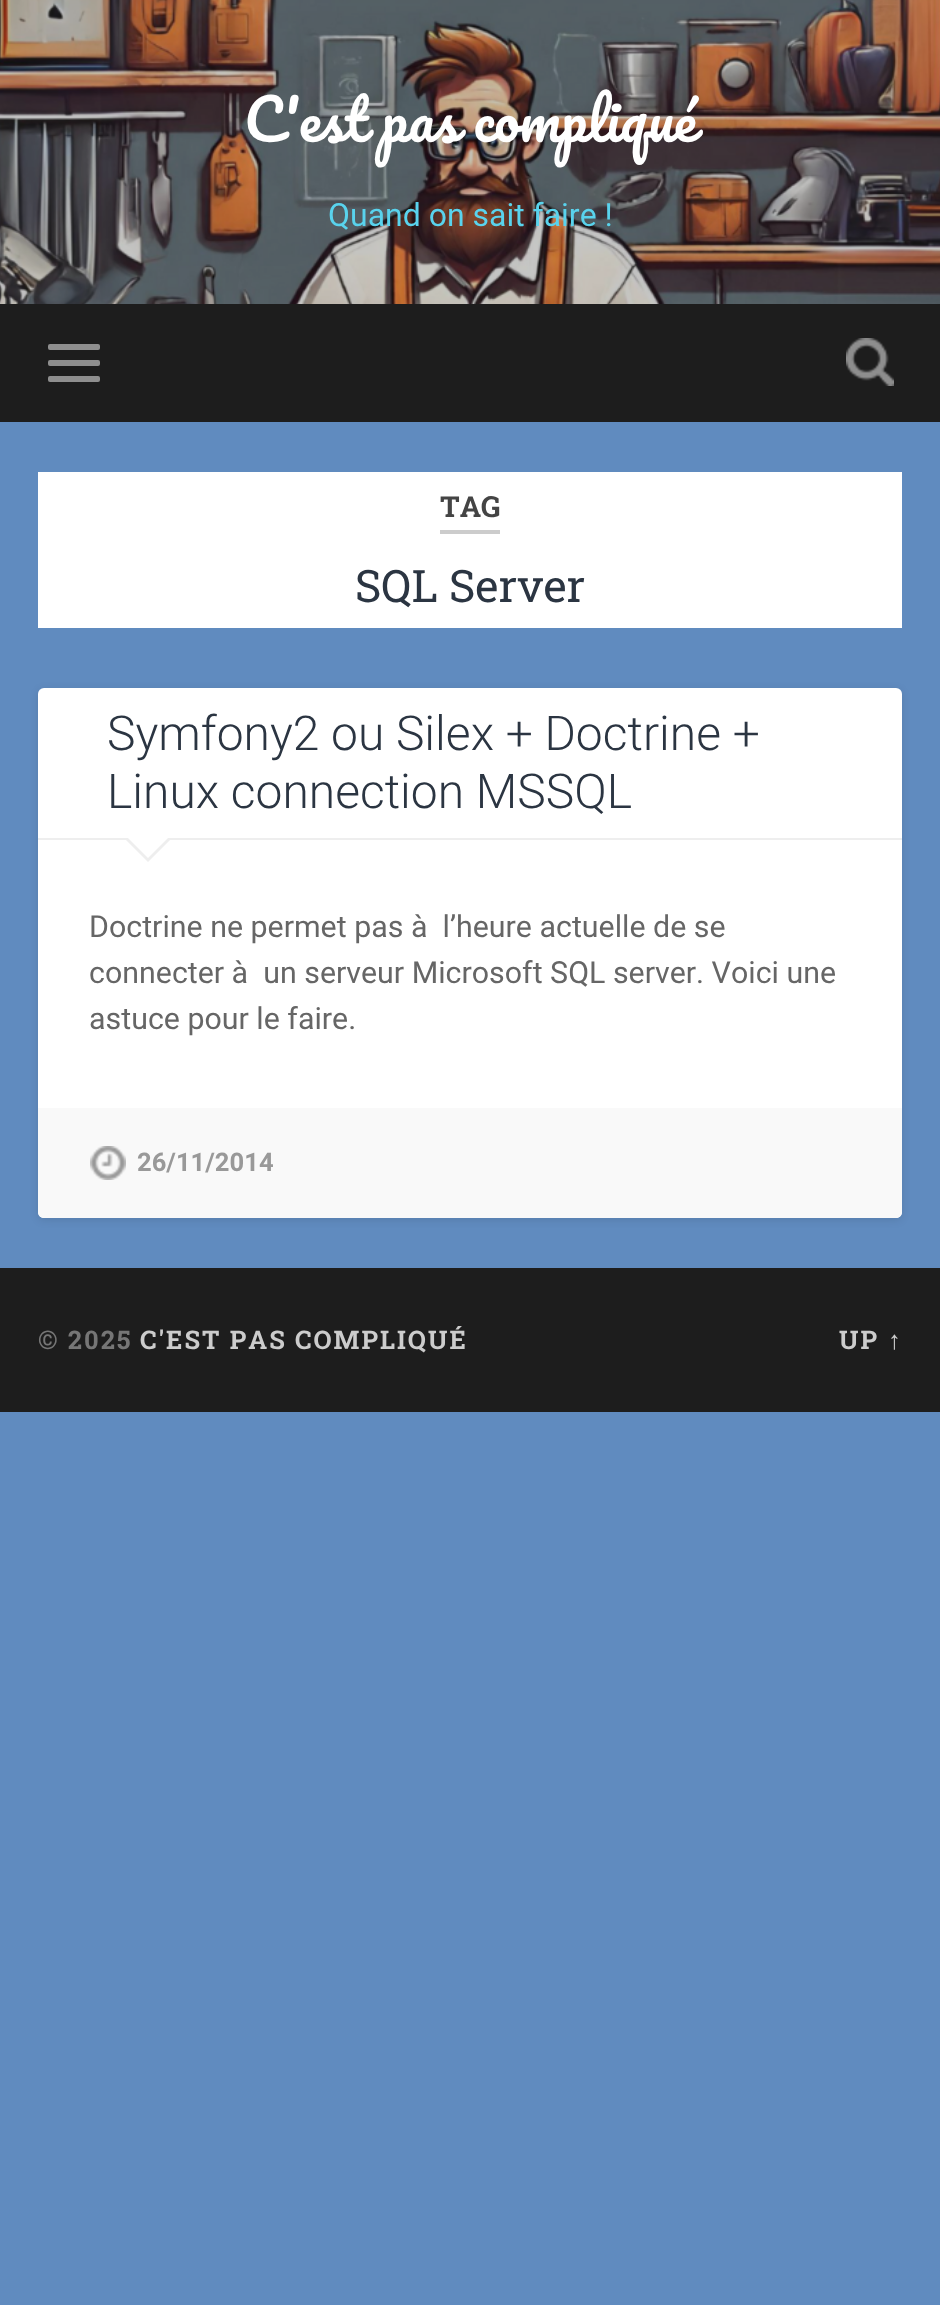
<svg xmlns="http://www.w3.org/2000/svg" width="940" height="2305">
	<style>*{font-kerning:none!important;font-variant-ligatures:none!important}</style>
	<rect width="100%" height="100%" fill="#608BBF" />
	<image x="0" y="0" width="940" height="304" href="assets/img1.png" />
	<text x="244" y="142" font-family="Pacifico" font-size="56" fill="#FFFFFF">C'est pas compliqué</text>
	<text x="328" y="226" font-family="Roboto" font-size="32" fill="#59D3ED">Quand on sait faire !</text>
	<rect x="0" y="304" width="940" height="118" fill="#1D1D1D" />
	<rect x="48" y="344" width="52" height="6" rx="2" fill="#8E8E8E" />
	<rect x="48" y="360" width="52" height="6" rx="2" fill="#8E8E8E" />
	<rect x="48" y="376" width="52" height="6" rx="2" fill="#8E8E8E" />
	<image x="846" y="338" width="48" height="48" href="assets/img2.png" />
	<rect x="38" y="472" width="864" height="156" fill="#FFFFFF" />
	<rect x="440" y="530" width="60" height="4" fill="#CCCCCC" />
	<text x="440" y="517" font-family="Roboto Slab" font-size="29" font-weight="700" fill="#444444">TAG</text>
	<text x="355" y="602" font-family="Roboto Slab" font-size="44.75" fill="#2B3542">SQL Server</text>
	<rect x="38" y="690" width="864" height="530" rx="6" fill="#000000" fill-opacity="0.1" filter="blur(4px)" />
	<rect x="38" y="688" width="864" height="530" rx="6" fill="#FFFFFF" />
	<rect x="38" y="838" width="864" height="2" fill="#EEEEEE" />
	<g font-family="Roboto" font-size="48" font-weight="300" fill="#2B3542">
		<text x="107" y="750">Symfony2 ou Silex + Doctrine +</text>
		<text x="107" y="808">Linux connection MSSQL</text>
	</g>
	<path d="M124 838H172L148 862Z" fill="#EEEEEE" />
	<path d="M126 836H170L148 858Z" fill="#FFFFFF" />
	<g font-family="Roboto" font-size="30.4" fill="#666666">
		<text x="89" y="937" xml:space="preserve">Doctrine ne permet pas à  l’heure actuelle de se</text>
		<text x="89" y="983" xml:space="preserve">connecter à  un serveur Microsoft SQL server. Voici une</text>
		<text x="89" y="1029">astuce pour le faire.</text>
	</g>
	<path d="M38 1108H902V1212C902 1215.5 899.5 1218 896 1218H44C40.5 1218 38 1215.5 38 1212Z" fill="#F9F9F9" />
	<image x="90" y="1146" width="36" height="34" href="assets/img3.png" />
	<text x="137" y="1171" font-family="Roboto" font-size="25.6" font-weight="700" fill="#999999">26/11/2014</text>
	<rect x="0" y="1268" width="940" height="144" fill="#1D1D1D" />
	<text x="38" y="1349" font-family="Roboto Slab" font-size="25.6" font-weight="700" letter-spacing="2" fill="#767676">© 2025</text>
	<g font-family="Roboto Slab" font-size="25.6" font-weight="700" letter-spacing="2" fill="#CCCCCC">
		<text x="140" y="1349">C'EST PAS COMPLIQUÉ</text>
		<text x="839" y="1349">UP</text>
	</g>
	<text x="888" y="1349" font-family="Liberation Sans" font-size="25.6" font-weight="700" letter-spacing="2" fill="#CCCCCC">↑</text>
</svg>
